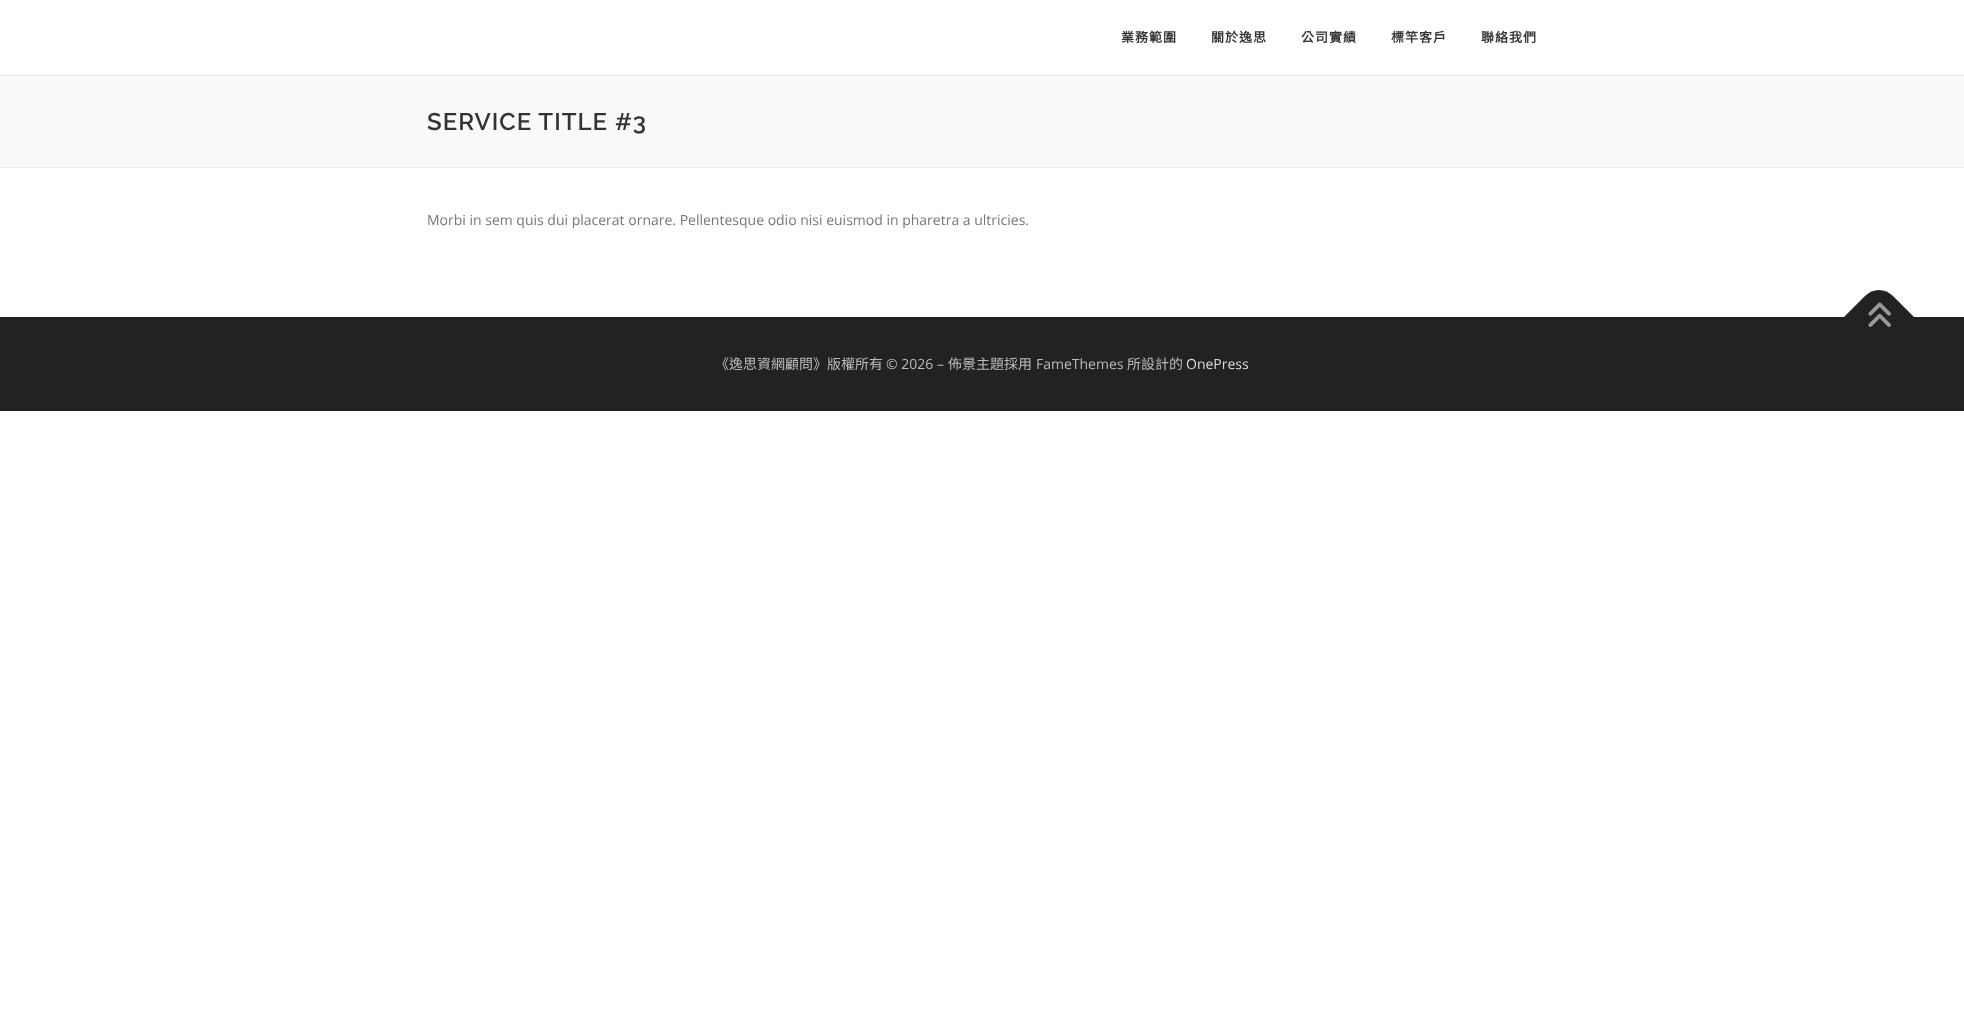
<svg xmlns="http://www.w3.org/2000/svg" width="1964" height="1017">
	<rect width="100%" height="100%" fill="#FFFFFF" />
	<g font-family="Noto Sans CJK TC" font-size="13" font-weight="700" letter-spacing="1" fill="#333333">
		<text x="1121" y="42">業務範圍</text>
		<text x="1211" y="42">關於逸思</text>
		<text x="1301" y="42">公司實績</text>
		<text x="1391" y="42">標竿客戶</text>
		<text x="1481" y="42">聯絡我們</text>
	</g>
	<rect x="0" y="76" width="1964" height="91" fill="#F8F9F9" />
	<rect x="0" y="75" width="1964" height="1" fill="#E9E9E9" />
	<rect x="0" y="167" width="1964" height="1" fill="#E9E9E9" />
	<text x="427" y="130" font-family="Raleway" font-size="24" font-weight="600" letter-spacing="1" fill="#333333">SERVICE TITLE #3</text>
	<text x="427" y="225" font-family="Open Sans" font-size="14" fill="#777777">Morbi in sem quis dui placerat ornare. Pellentesque odio nisi euismod in pharetra a ultricies.</text>
	<rect x="0" y="317" width="1964" height="94" fill="#222222" />
	<path d="M1844 317L1865 296C1873 288 1885 288 1893 296L1914 317L1879 352Z" fill="#222222" />
	<image x="1868" y="302" width="23" height="25" href="assets/img1.png" />
	<text x="715" y="369" font-family="Noto Sans CJK TC" font-size="14" fill="#BBBBBB">《逸思資網顧問》版權所有</text>
	<text x="886" y="369" font-family="Open Sans" font-size="14" fill="#BBBBBB">© 2026 –</text>
	<text x="948" y="369" font-family="Noto Sans CJK TC" font-size="14" fill="#BBBBBB">佈景主題採用</text>
	<text x="1036" y="369" font-family="Open Sans" font-size="14" fill="#BBBBBB">FameThemes</text>
	<text x="1127" y="369" font-family="Noto Sans CJK TC" font-size="14" fill="#BBBBBB">所設計的</text>
	<text x="1186" y="369" font-family="Open Sans" font-size="14" fill="#DDDDDD">OnePress</text>
</svg>
